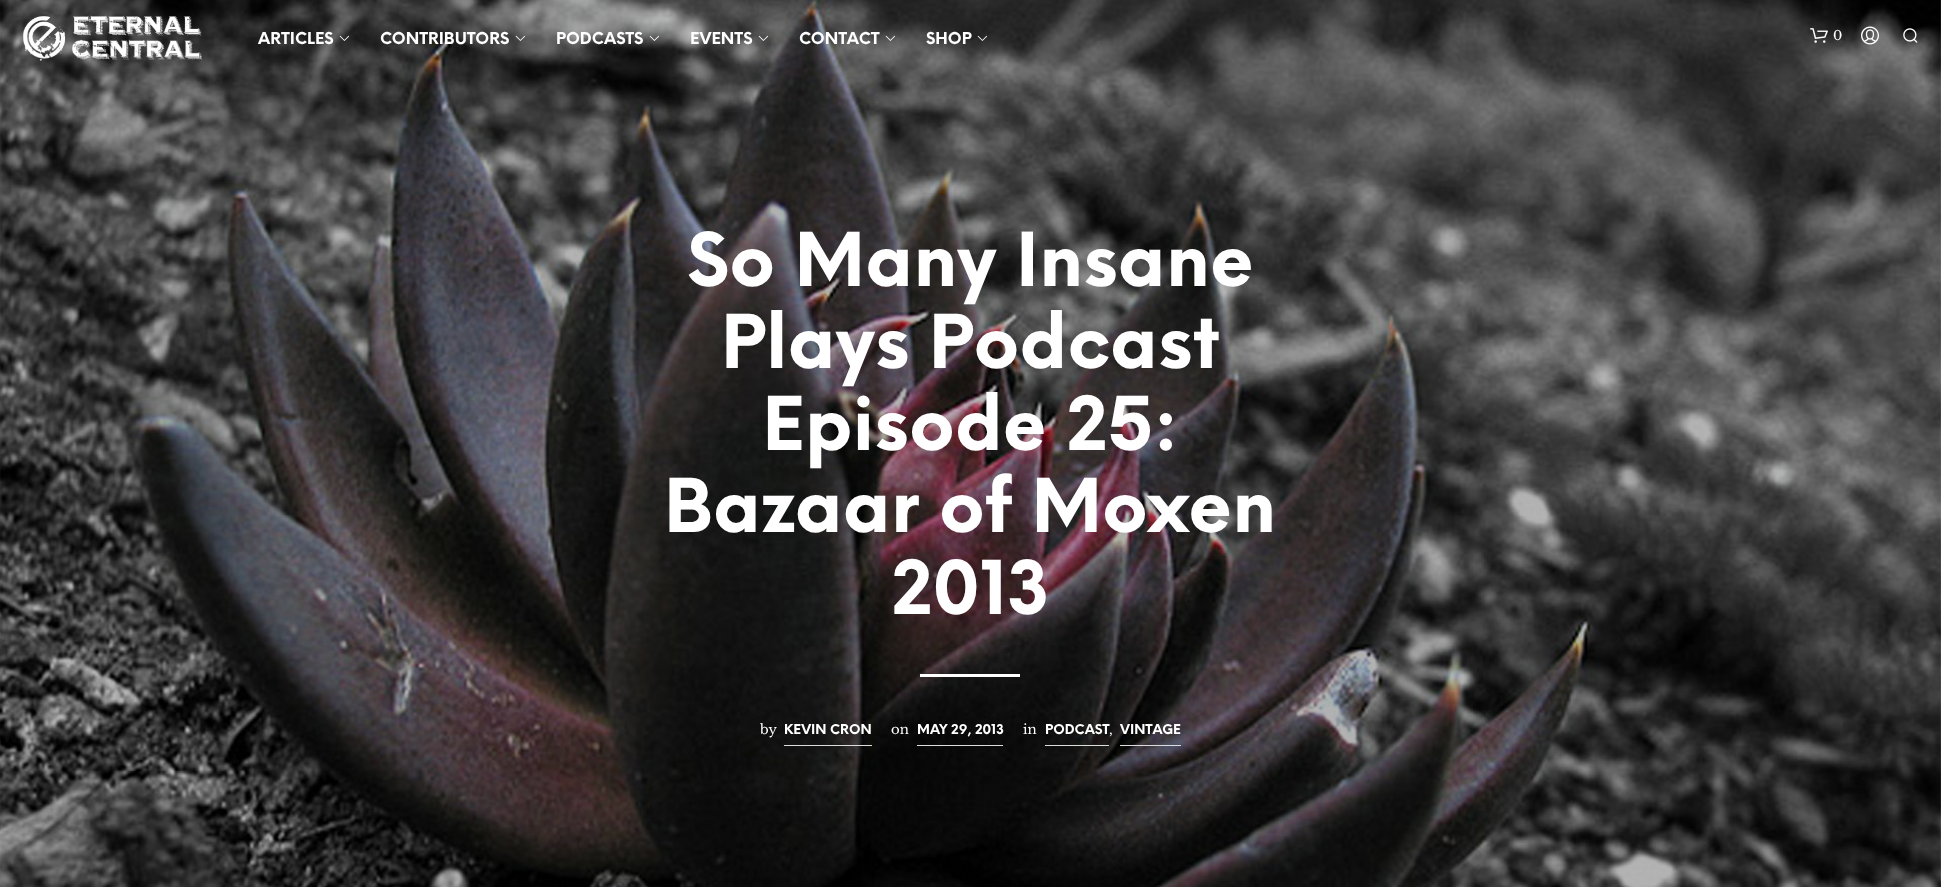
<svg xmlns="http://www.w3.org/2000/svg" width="1941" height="887">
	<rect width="100%" height="100%" fill="#FFFFFF" />
	<image x="0" y="0" width="1941" height="887" href="assets/img11.png" />
	<image x="23" y="15" width="179" height="46" href="assets/img1.png" />
	<text x="258" y="44" font-family="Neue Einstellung" font-size="16" font-weight="700" fill="#FFFFFF">ARTICLES</text>
	<image x="339" y="35" width="10" height="6" href="assets/img2.png" />
	<text x="380" y="44" font-family="Neue Einstellung" font-size="16" font-weight="700" fill="#FFFFFF">CONTRIBUTORS</text>
	<image x="515" y="35" width="10" height="6" href="assets/img3.png" />
	<text x="556" y="44" font-family="Neue Einstellung" font-size="16" font-weight="700" fill="#FFFFFF">PODCASTS</text>
	<image x="649" y="35" width="10" height="6" href="assets/img4.png" />
	<text x="690" y="44" font-family="Neue Einstellung" font-size="16" font-weight="700" fill="#FFFFFF">EVENTS</text>
	<image x="758" y="35" width="10" height="6" href="assets/img5.png" />
	<text x="799" y="44" font-family="Neue Einstellung" font-size="16" font-weight="700" fill="#FFFFFF">CONTACT</text>
	<image x="885" y="35" width="10" height="6" href="assets/img6.png" />
	<text x="926" y="44" font-family="Neue Einstellung" font-size="16" font-weight="700" fill="#FFFFFF">SHOP</text>
	<image x="977" y="35" width="10" height="6" href="assets/img7.png" />
	<image x="1810" y="28" width="18" height="15" href="assets/img8.png" />
	<text x="1833" y="40" font-family="Libre Baskerville" font-size="13" fill="#FFFFFF">0</text>
	<image x="1861" y="26" width="18" height="19" href="assets/img9.png" />
	<image x="1903" y="28" width="15" height="15" href="assets/img10.png" />
	<g font-family="Neue Einstellung" font-size="72.5" font-weight="700" fill="#FFFFFF">
		<text x="687" y="286">So Many Insane</text>
		<text x="721" y="368">Plays Podcast</text>
		<text x="762" y="450">Episode 25:</text>
		<text x="664" y="532">Bazaar of Moxen</text>
		<text x="891" y="614">2013</text>
	</g>
	<rect x="920" y="674" width="100" height="3" fill="#FFFFFF" />
	<text x="760" y="734" font-family="Libre Baskerville" font-size="13.25" fill="#FFFFFF">by</text>
	<rect x="784" y="745" width="88" height="1" fill="#DDDDDD" />
	<text x="784" y="734" font-family="Neue Einstellung" font-size="13.25" font-weight="700" fill="#FFFFFF">KEVIN CRON</text>
	<text x="891" y="734" font-family="Libre Baskerville" font-size="13.25" fill="#FFFFFF">on</text>
	<rect x="917" y="745" width="86" height="1" fill="#DDDDDD" />
	<text x="917" y="734" font-family="Neue Einstellung" font-size="13.25" font-weight="700" fill="#FFFFFF">MAY 29, 2013</text>
	<text x="1023" y="734" font-family="Libre Baskerville" font-size="13.25" fill="#FFFFFF">in</text>
	<rect x="1045" y="745" width="64" height="1" fill="#DDDDDD" />
	<text x="1045" y="734" font-family="Neue Einstellung" font-size="13.25" font-weight="700" fill="#FFFFFF">PODCAST</text>
	<text x="1109" y="734" font-family="Libre Baskerville" font-size="13.25" fill="#FFFFFF">,</text>
	<rect x="1120" y="745" width="61" height="1" fill="#DDDDDD" />
	<text x="1120" y="734" font-family="Neue Einstellung" font-size="13.25" font-weight="700" fill="#FFFFFF">VINTAGE</text>
</svg>
